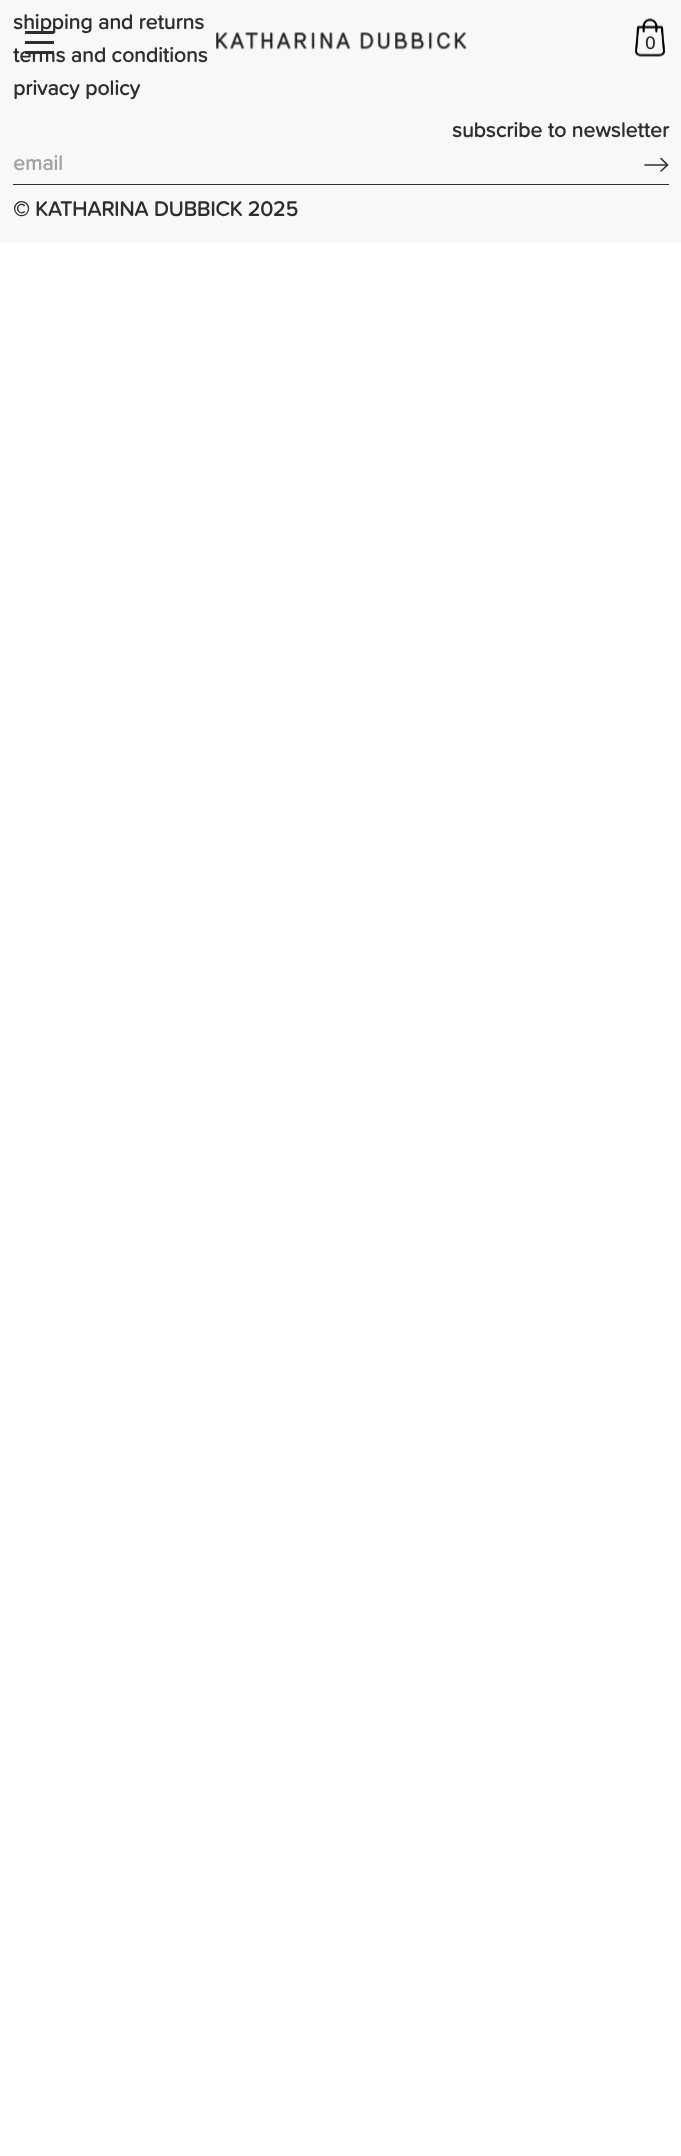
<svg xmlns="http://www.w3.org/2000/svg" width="681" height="2156">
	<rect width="100%" height="100%" fill="#FFFFFF" />
	<rect x="0" y="0" width="681" height="243" fill="#F8F8F8" />
	<g font-family="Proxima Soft" font-size="21.25" font-weight="700" fill="#2F2E2E">
		<text x="13" y="29">shipping and returns</text>
		<text x="13" y="62">terms and conditions</text>
		<text x="13" y="95">privacy policy</text>
		<text x="452" y="137">subscribe to newsletter</text>
	</g>
	<rect x="13" y="184" width="656" height="1" fill="#2F2E2E" />
	<text x="13" y="170" font-family="Proxima Soft" font-size="21.25" font-weight="700" fill="#A2A2A2">email</text>
	<path d="M661 171L667.5 165L661 158.5" fill="none" stroke="#2F2E2E" stroke-width="1.6" stroke-linecap="round" />
	<path d="M666.5 165H645" fill="none" stroke="#2F2E2E" stroke-width="1.6" stroke-linecap="round" stroke-linejoin="round" />
	<text x="13" y="216" font-family="Proxima Soft" font-size="21.25" font-weight="700" fill="#2F2E2E">© KATHARINA DUBBICK 2025</text>
	<rect x="25" y="31" width="29" height="3" fill="#2F2E2E" />
	<rect x="25" y="41" width="29" height="3" fill="#2F2E2E" />
	<rect x="25" y="51" width="29" height="3" fill="#2F2E2E" />
	<image x="216" y="32" width="251" height="18" href="assets/img1.png" />
	<image x="635" y="18" width="31" height="39" href="assets/img2.png" />
	<text x="645" y="49" font-family="Nunito Sans" font-size="18" font-weight="600" fill="#2F2E2E">0</text>
</svg>
